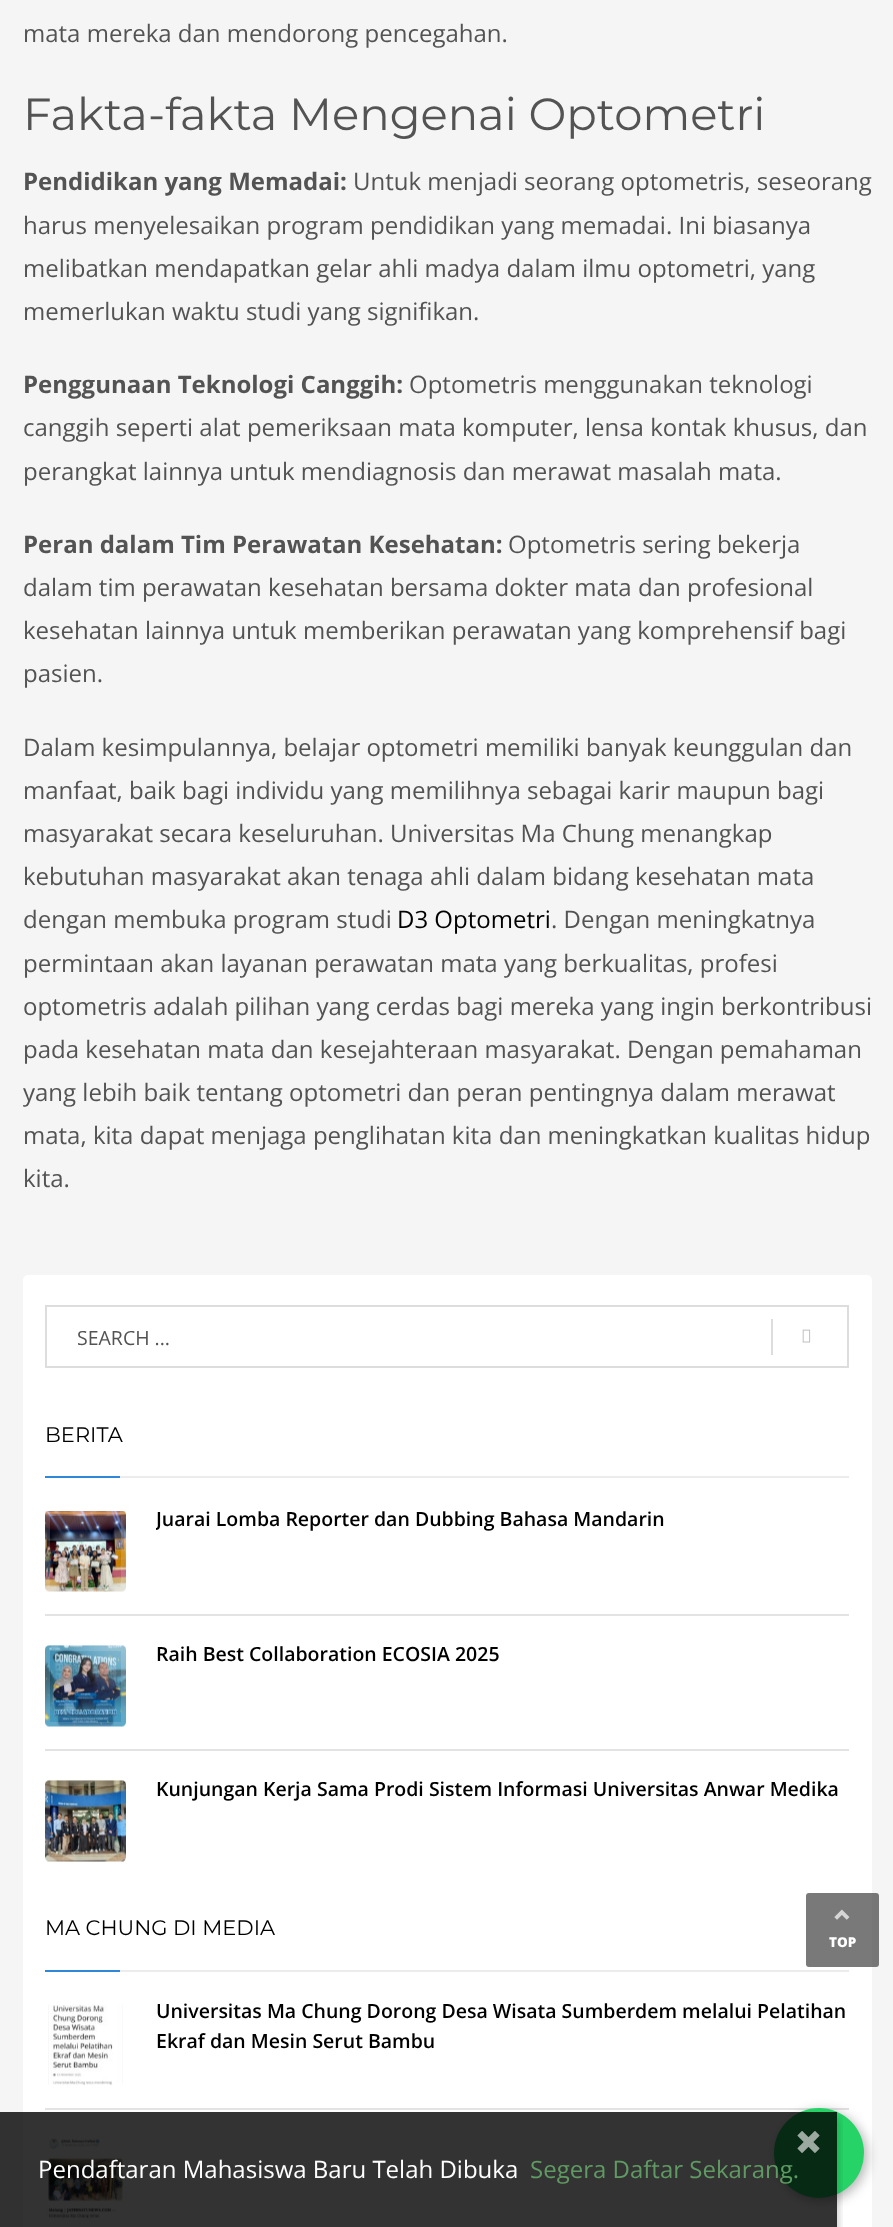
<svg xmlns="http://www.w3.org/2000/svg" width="893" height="2227">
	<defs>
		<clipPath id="clip1"><rect x="156" y="1503" width="693" height="30" /></clipPath>
		<clipPath id="clip2"><rect x="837" y="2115" width="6" height="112" /></clipPath>
	</defs>
	<rect width="100%" height="100%" fill="#F5F5F5" />
	<text x="23" y="42" font-family="Open Sans" font-size="24" fill="#535353">mata mereka dan mendorong pencegahan.</text>
	<text x="23" y="130" font-family="Montserrat" font-size="45" fill="#535353">Fakta-fakta Mengenai Optometri</text>
	<text x="23" y="190" font-family="Open Sans" font-size="24" font-weight="700" fill="#535353">Pendidikan yang Memadai:</text>
	<g font-family="Open Sans" font-size="24" fill="#535353">
		<text x="353" y="190">Untuk menjadi seorang optometris, seseorang</text>
		<text x="23" y="234">harus menyelesaikan program pendidikan yang memadai. Ini biasanya</text>
		<text x="23" y="277">melibatkan mendapatkan gelar ahli madya dalam ilmu optometri, yang</text>
		<text x="23" y="320">memerlukan waktu studi yang signifikan.</text>
	</g>
	<text x="23" y="393" font-family="Open Sans" font-size="24" font-weight="700" fill="#535353">Penggunaan Teknologi Canggih:</text>
	<g font-family="Open Sans" font-size="24" fill="#535353">
		<text x="409" y="393">Optometris menggunakan teknologi</text>
		<text x="23" y="436">canggih seperti alat pemeriksaan mata komputer, lensa kontak khusus, dan</text>
		<text x="23" y="480">perangkat lainnya untuk mendiagnosis dan merawat masalah mata.</text>
	</g>
	<text x="23" y="553" font-family="Open Sans" font-size="24" font-weight="700" fill="#535353">Peran dalam Tim Perawatan Kesehatan:</text>
	<g font-family="Open Sans" font-size="24" fill="#535353">
		<text x="508" y="553">Optometris sering bekerja</text>
		<text x="23" y="596">dalam tim perawatan kesehatan bersama dokter mata dan profesional</text>
		<text x="23" y="639">kesehatan lainnya untuk memberikan perawatan yang komprehensif bagi</text>
		<text x="23" y="682">pasien.</text>
		<text x="23" y="756">Dalam kesimpulannya, belajar optometri memiliki banyak keunggulan dan</text>
		<text x="23" y="799">manfaat, baik bagi individu yang memilihnya sebagai karir maupun bagi</text>
		<text x="23" y="842">masyarakat secara keseluruhan. Universitas Ma Chung menangkap</text>
		<text x="23" y="885">kebutuhan masyarakat akan tenaga ahli dalam bidang kesehatan mata</text>
		<text x="23" y="928">dengan membuka program studi</text>
	</g>
	<text x="397" y="928" font-family="Open Sans" font-size="24" fill="#000000">D3 Optometri</text>
	<g font-family="Open Sans" font-size="24" fill="#535353">
		<text x="551" y="928">. Dengan meningkatnya</text>
		<text x="23" y="972">permintaan akan layanan perawatan mata yang berkualitas, profesi</text>
		<text x="23" y="1015">optometris adalah pilihan yang cerdas bagi mereka yang ingin berkontribusi</text>
		<text x="23" y="1058">pada kesehatan mata dan kesejahteraan masyarakat. Dengan pemahaman</text>
		<text x="23" y="1101">yang lebih baik tentang optometri dan peran pentingnya dalam merawat</text>
		<text x="23" y="1144">mata, kita dapat menjaga penglihatan kita dan meningkatkan kualitas hidup</text>
		<text x="23" y="1187">kita.</text>
	</g>
	<rect x="23" y="1275" width="849" height="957" rx="5" fill="#FFFFFF" />
	<rect x="46" y="1306" width="802" height="61" fill="none" stroke="#DDDDDD" stroke-width="2" />
	<text x="77" y="1345" font-family="Open Sans" font-size="19.5" fill="#535353">SEARCH ...</text>
	<rect x="771" y="1319" width="2" height="36" fill="#DDDDDD" />
	<image x="802" y="1329" width="9" height="14" href="assets/img1.png" />
	<text x="45" y="1442" font-family="Montserrat" font-size="21" fill="#000000">BERITA</text>
	<rect x="45" y="1476" width="75" height="2" fill="#2F87D8" />
	<rect x="120" y="1476" width="729" height="2" fill="#ECECEC" />
	<rect x="45" y="1614" width="804" height="2" fill="#E3E3E3" />
	<image x="45" y="1511" width="81" height="81" href="assets/img2.png" />
	<rect x="47.5" y="1513.5" width="76" height="76" rx="2.5" fill="none" stroke="#FFFFFF" stroke-opacity="0.15" stroke-width="5" />
	<g clip-path="url(#clip1)">
		<text x="156" y="1526" font-family="Open Sans" font-size="19.5" font-weight="600" fill="#000000">Juarai Lomba Reporter dan Dubbing Bahasa Mandarin</text>
	</g>
	<rect x="45" y="1749" width="804" height="2" fill="#E3E3E3" />
	<image x="45" y="1645" width="81" height="82" href="assets/img3.png" />
	<rect x="47.5" y="1648.5" width="76" height="76" rx="2.5" fill="none" stroke="#FFFFFF" stroke-opacity="0.15" stroke-width="5" />
	<text x="156" y="1661" font-family="Open Sans" font-size="19.5" font-weight="600" fill="#000000">Raih Best Collaboration ECOSIA 2025</text>
	<image x="45" y="1780" width="81" height="82" href="assets/img4.png" />
	<rect x="47.5" y="1783.5" width="76" height="76" rx="2.5" fill="none" stroke="#FFFFFF" stroke-opacity="0.15" stroke-width="5" />
	<text x="156" y="1796" font-family="Open Sans" font-size="19.5" font-weight="600" fill="#000000">Kunjungan Kerja Sama Prodi Sistem Informasi Universitas Anwar Medika</text>
	<text x="45" y="1935" font-family="Montserrat" font-size="21" fill="#000000">MA CHUNG DI MEDIA</text>
	<rect x="45" y="1970" width="75" height="2" fill="#2F87D8" />
	<rect x="120" y="1970" width="729" height="2" fill="#ECECEC" />
	<rect x="45" y="2108" width="804" height="2" fill="#E3E3E3" />
	<image x="48" y="2004" width="75" height="82" href="assets/img5.png" />
	<rect x="47.5" y="2006.5" width="76" height="76" rx="2.5" fill="none" stroke="#FFFFFF" stroke-opacity="0.15" stroke-width="5" />
	<g font-family="Open Sans" font-size="19.5" font-weight="600" fill="#000000">
		<text x="156" y="2018">Universitas Ma Chung Dorong Desa Wisata Sumberdem melalui Pelatihan</text>
		<text x="156" y="2048">Ekraf dan Mesin Serut Bambu</text>
	</g>
	<image x="45" y="2138" width="80" height="81" href="assets/img6.png" />
	<rect x="47.5" y="2141.5" width="76" height="76" rx="2.5" fill="none" stroke="#FFFFFF" stroke-opacity="0.15" stroke-width="5" />
	<rect x="806" y="1893" width="73" height="74" rx="3" fill="#404040" fill-opacity="0.7" />
	<image x="834" y="1909" width="16" height="11" href="assets/img7.png" />
	<text x="829" y="1947" font-family="Open Sans" font-size="13.5" font-weight="800" fill="#FFFFFF">TOP</text>
	<rect x="777" y="2111" width="90" height="90" rx="45" fill="#000000" fill-opacity="0.3" filter="blur(6px)" />
	<circle cx="819" cy="2153" r="45" fill="#25D366" />
	<g clip-path="url(#clip2)">
		<rect x="3" y="2118" width="837" height="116" fill="#000000" fill-opacity="0.15" filter="blur(3px)" />
	</g>
	<rect x="0" y="2112" width="837" height="115" fill="#000000" fill-opacity="0.8" />
	<image x="797" y="2131" width="23" height="22" href="assets/img8.png" />
	<text x="38" y="2178" font-family="Open Sans" font-size="24" fill="#FFFFFF">Pendaftaran Mahasiswa Baru Telah Dibuka</text>
	<text x="530" y="2178" font-family="Open Sans" font-size="24" fill="#609A63">Segera Daftar Sekarang.</text>
</svg>
